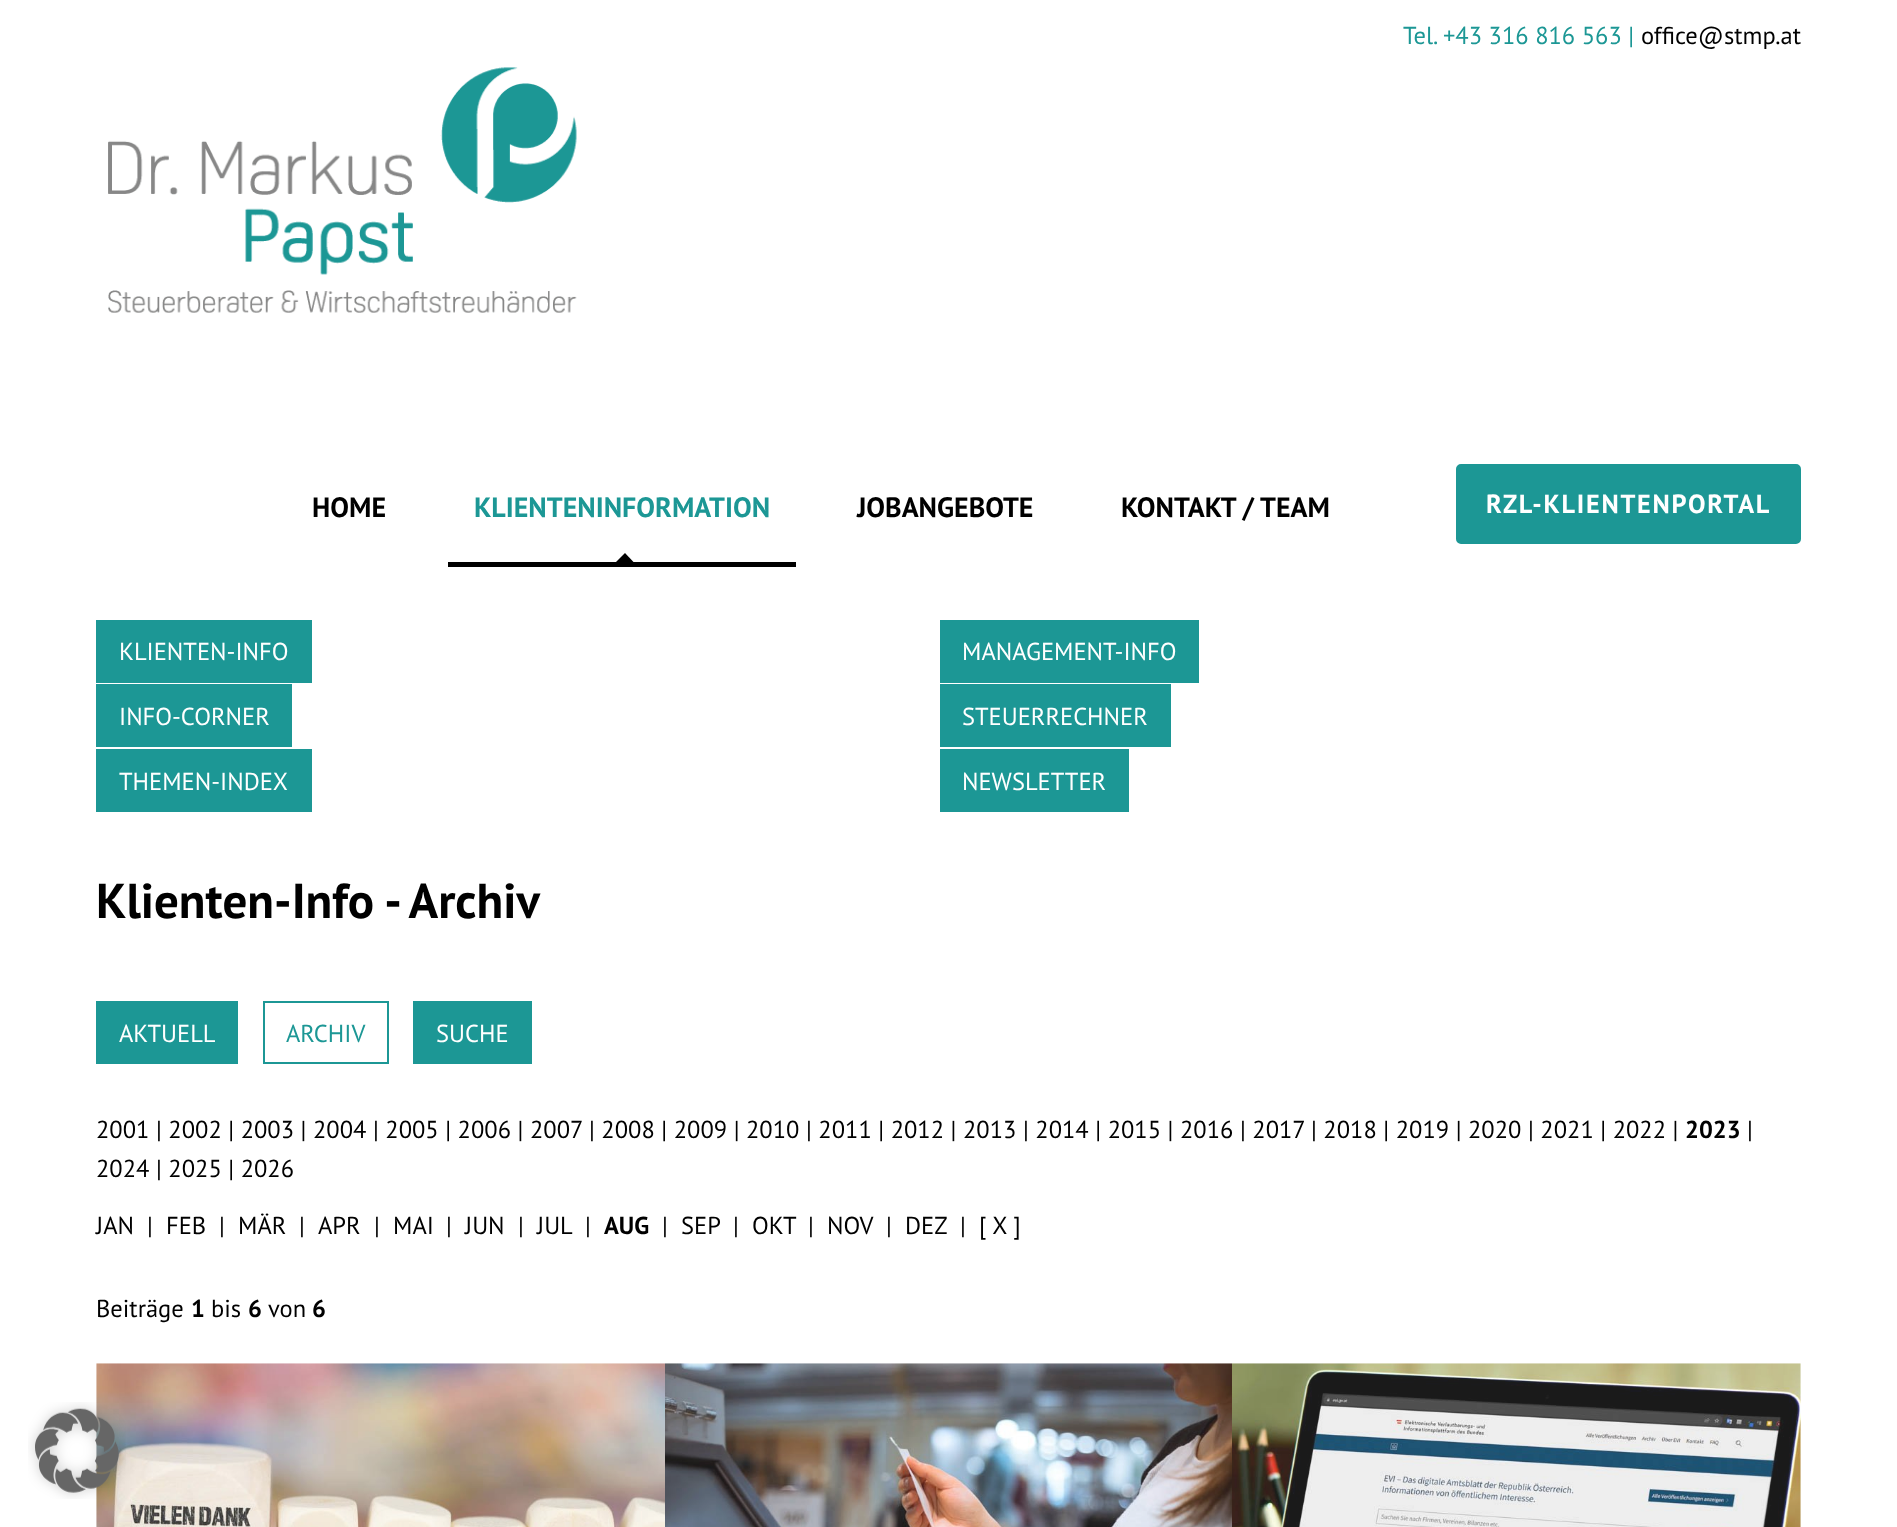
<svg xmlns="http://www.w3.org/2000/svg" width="1897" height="1527">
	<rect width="100%" height="100%" fill="#FFFFFF" />
	<text x="1403" y="44" font-family="PT Sans" font-size="24.5" fill="#1C9795">Tel. +43 316 816 563 |</text>
	<text x="1641" y="44" font-family="PT Sans" font-size="24.5" fill="#000000">office@stmp.at</text>
	<image x="108" y="67" width="469" height="246" href="assets/img1.png" />
	<text x="312" y="517" font-family="PT Sans" font-size="28" font-weight="700" fill="#000000">HOME</text>
	<text x="474" y="517" font-family="PT Sans" font-size="28" font-weight="700" fill="#1C9795">KLIENTENINFORMATION</text>
	<g font-family="PT Sans" font-size="28" font-weight="700" fill="#000000">
		<text x="857" y="517">JOBANGEBOTE</text>
		<text x="1121" y="517">KONTAKT / TEAM</text>
	</g>
	<rect x="448" y="562" width="348" height="5" fill="#000000" />
	<path d="M633.5 562H616L625 553Z" fill="#000000" />
	<rect x="1458" y="466" width="341" height="76" rx="3" fill="#1C9795" stroke="#1C9795" stroke-width="4" />
	<text x="1486" y="513" font-family="PT Sans" font-size="26.25" font-weight="700" letter-spacing="1.75" fill="#FFFFFF">RZL-KLIENTENPORTAL</text>
	<rect x="96" y="620" width="216" height="63" fill="#1C9795" />
	<text x="119" y="660" font-family="PT Sans" font-size="24.5" fill="#FFFFFF">KLIENTEN-INFO</text>
	<rect x="940" y="620" width="259" height="63" fill="#1C9795" />
	<text x="962" y="660" font-family="PT Sans" font-size="24.5" fill="#FFFFFF">MANAGEMENT-INFO</text>
	<rect x="96" y="684" width="196" height="63" fill="#1C9795" />
	<text x="119" y="725" font-family="PT Sans" font-size="24.5" fill="#FFFFFF">INFO-CORNER</text>
	<rect x="940" y="684" width="231" height="63" fill="#1C9795" />
	<text x="962" y="725" font-family="PT Sans" font-size="24.5" fill="#FFFFFF">STEUERRECHNER</text>
	<rect x="96" y="749" width="216" height="63" fill="#1C9795" />
	<text x="119" y="790" font-family="PT Sans" font-size="24.5" fill="#FFFFFF">THEMEN-INDEX</text>
	<rect x="940" y="749" width="189" height="63" fill="#1C9795" />
	<text x="962" y="790" font-family="PT Sans" font-size="24.5" fill="#FFFFFF">NEWSLETTER</text>
	<text x="96" y="918" font-family="PT Sans" font-size="49" font-weight="700" fill="#000000">Klienten-Info - Archiv</text>
	<rect x="96" y="1001" width="142" height="63" fill="#1C9795" />
	<text x="119" y="1042" font-family="PT Sans" font-size="24.5" fill="#FFFFFF">AKTUELL</text>
	<rect x="264" y="1002" width="124" height="61" fill="none" stroke="#1C9795" stroke-width="2" />
	<text x="286" y="1042" font-family="PT Sans" font-size="24.5" fill="#1C9795">ARCHIV</text>
	<rect x="413" y="1001" width="119" height="63" fill="#1C9795" />
	<text x="436" y="1042" font-family="PT Sans" font-size="24.5" fill="#FFFFFF">SUCHE</text>
	<g font-family="PT Sans" font-size="24.5" fill="#000000">
		<text x="96" y="1138">2001 | 2002 | 2003 | 2004 | 2005 | 2006 | 2007</text>
		<text x="589" y="1138">| 2008 | 2009 | 2010 | 2011 | 2012 | 2013 | 2014 | 2015 | 2016 | 2017</text>
		<text x="1311" y="1138">| 2018 | 2019 | 2020 | 2021 | 2022 |</text>
	</g>
	<text x="1685" y="1138" font-family="PT Sans" font-size="24.5" font-weight="700" fill="#000000">2023</text>
	<g font-family="PT Sans" font-size="24.5" fill="#000000">
		<text x="1747" y="1138">|</text>
		<text x="96" y="1177">2024 | 2025 | 2026</text>
		<text x="96" y="1234">JAN</text>
		<text x="147" y="1234">|</text>
		<text x="166" y="1234">FEB</text>
		<text x="219" y="1234">|</text>
		<text x="238" y="1234">MÄR</text>
		<text x="299" y="1234">|</text>
		<text x="318" y="1234">APR</text>
		<text x="374" y="1234">|</text>
		<text x="393" y="1234">MAI</text>
		<text x="446" y="1234">|</text>
		<text x="465" y="1234">JUN</text>
		<text x="518" y="1234">|</text>
		<text x="537" y="1234">JUL</text>
		<text x="585" y="1234">|</text>
	</g>
	<text x="604" y="1234" font-family="PT Sans" font-size="24.5" font-weight="700" fill="#000000">AUG</text>
	<g font-family="PT Sans" font-size="24.5" fill="#000000">
		<text x="662" y="1234">|</text>
		<text x="681" y="1234">SEP</text>
		<text x="733" y="1234">|</text>
		<text x="752" y="1234">OKT</text>
		<text x="808" y="1234">|</text>
		<text x="827" y="1234">NOV</text>
		<text x="886" y="1234">|</text>
		<text x="905" y="1234">DEZ</text>
		<text x="960" y="1234">|</text>
		<text x="979" y="1234">[ X ]</text>
		<text x="96" y="1317">Beiträge</text>
	</g>
	<text x="191" y="1317" font-family="PT Sans" font-size="24.5" font-weight="700" fill="#000000">1</text>
	<text x="211" y="1317" font-family="PT Sans" font-size="24.5" fill="#000000">bis</text>
	<text x="248" y="1317" font-family="PT Sans" font-size="24.5" font-weight="700" fill="#000000">6</text>
	<text x="268" y="1317" font-family="PT Sans" font-size="24.5" fill="#000000">von</text>
	<text x="312" y="1317" font-family="PT Sans" font-size="24.5" font-weight="700" fill="#000000">6</text>
	<image x="96" y="1363" width="569" height="164" href="assets/img2.png" />
	<image x="665" y="1363" width="567" height="164" href="assets/img3.png" />
	<image x="1232" y="1363" width="569" height="164" href="assets/img4.png" />
	<image x="28" y="1402" width="98" height="97" href="assets/img5.png" />
</svg>
